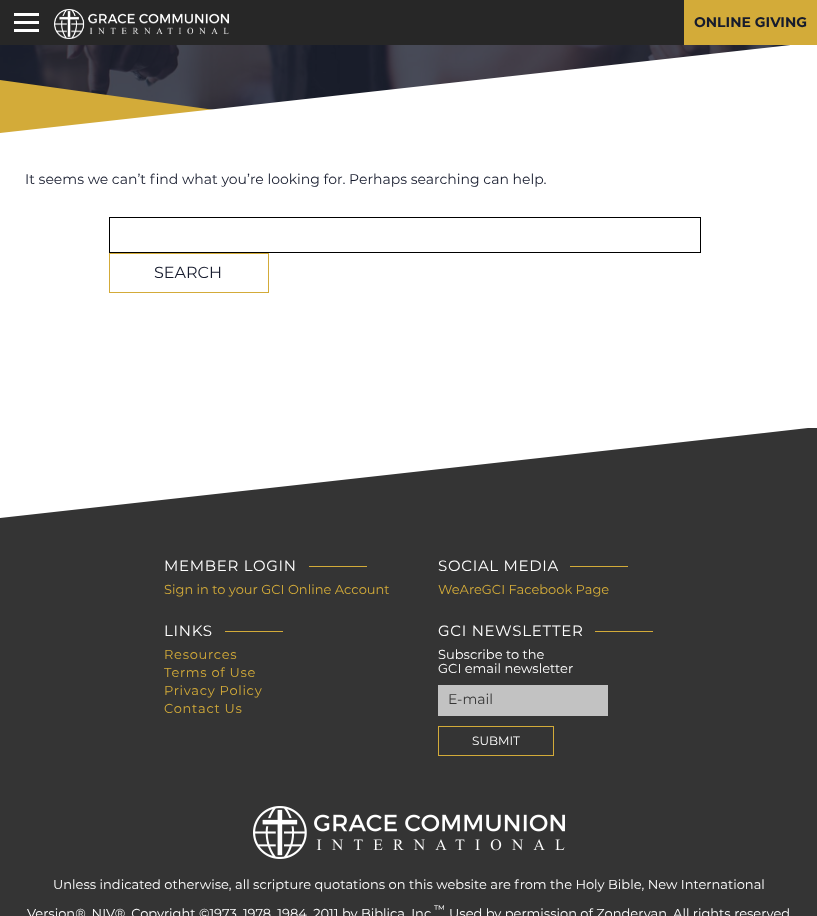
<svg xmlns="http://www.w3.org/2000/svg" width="817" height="916">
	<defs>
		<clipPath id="clip1"><rect x="0" y="428" width="817" height="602" /></clipPath>
	</defs>
	<rect width="100%" height="100%" fill="#FFFFFF" />
	<rect x="0" y="45" width="790" height="65" fill="#161B2D" />
	<image x="0" y="45" width="790" height="65" href="assets/img2.png" />
	<path d="M0 80L495 149L476 288L-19 218Z" fill="#D3AB39" />
	<path d="M817 133H0L817 42Z" fill="#FFFFFF" />
	<rect x="0" y="0" width="684" height="45" fill="#272727" />
	<rect x="14" y="21" width="25" height="3" fill="#FFFFFF" />
	<rect x="14" y="13" width="25" height="3" fill="#FFFFFF" />
	<rect x="14" y="29" width="25" height="3" fill="#FFFFFF" />
	<image x="54" y="9" width="175" height="30" href="assets/img1.png" />
	<rect x="684" y="0" width="133" height="45" fill="#D3AB39" />
	<text x="694" y="27" font-family="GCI" font-size="14" font-weight="700" fill="#161B2D">ONLINE GIVING</text>
	<rect x="0" y="133" width="495" height="155" fill="#FFFFFF" />
	<text x="25" y="184" font-family="GCI" font-size="14" fill="#161B2D">It seems we can’t find what you’re looking for. Perhaps searching can help.</text>
	<rect x="109.5" y="217.5" width="591" height="35" fill="none" stroke="#000000" />
	<rect x="109.5" y="253.5" width="159" height="39" fill="none" stroke="#D3AB39" />
	<text x="154" y="278" font-family="GCI" font-size="16" fill="#161B2D">SEARCH</text>
	<g clip-path="url(#clip1)">
		<path d="M817 518H0L817 427Z" fill="#343434" />
	</g>
	<rect x="0" y="518" width="817" height="398" fill="#343434" />
	<text x="164" y="571" font-family="GCI" font-size="15" letter-spacing="0.7" fill="#FFFFFF">MEMBER LOGIN</text>
	<rect x="309" y="566" width="58" height="1" fill="#D3AB39" />
	<text x="164" y="594" font-family="GCI" font-size="13" fill="#D3AB39">Sign in to your GCI Online Account</text>
	<text x="164" y="636" font-family="GCI" font-size="15" letter-spacing="0.7" fill="#FFFFFF">LINKS</text>
	<rect x="225" y="631" width="58" height="1" fill="#D3AB39" />
	<g font-family="GCI" font-size="13" letter-spacing="0.7" fill="#D3AB39">
		<text x="164" y="659">Resources</text>
		<text x="164" y="677">Terms of Use</text>
		<text x="164" y="695">Privacy Policy</text>
		<text x="164" y="713">Contact Us</text>
	</g>
	<text x="438" y="571" font-family="GCI" font-size="15" letter-spacing="0.7" fill="#FFFFFF">SOCIAL MEDIA</text>
	<rect x="570" y="566" width="58" height="1" fill="#D3AB39" />
	<text x="438" y="594" font-family="GCI" font-size="13" fill="#D3AB39">WeAreGCI Facebook Page</text>
	<text x="438" y="636" font-family="GCI" font-size="15" letter-spacing="0.7" fill="#FFFFFF">GCI NEWSLETTER</text>
	<rect x="595" y="631" width="58" height="1" fill="#D3AB39" />
	<g font-family="GCI" font-size="13" fill="#FFFFFF">
		<text x="438" y="659">Subscribe to the</text>
		<text x="438" y="673">GCI email newsletter</text>
	</g>
	<rect x="438" y="685" width="170" height="31" fill="#C2C2C2" />
	<text x="448" y="704" font-family="GCI" font-size="14" fill="#363636">E-mail</text>
	<rect x="438.5" y="726.5" width="115" height="29" fill="none" stroke="#D3AB39" />
	<text x="472" y="745" font-family="GCI" font-size="12" fill="#FFFFFF">SUBMIT</text>
	<image x="253" y="806" width="312" height="53" href="assets/img3.png" />
	<text x="53" y="889" font-family="GCI" font-size="13" fill="#FFFFFF">Unless indicated otherwise, all scripture quotations on this website are from the Holy Bible, New International</text>
	<text x="434" y="913" font-family="GCI" font-size="11" fill="#FFFFFF">™</text>
	<g font-family="GCI" font-size="13" fill="#FFFFFF">
		<text x="27" y="918">Version®, NIV®. Copyright ©1973, 1978, 1984, 2011 by Biblica, Inc</text>
		<text x="449" y="918">Used by permission of Zondervan. All rights reserved</text>
	</g>
</svg>
